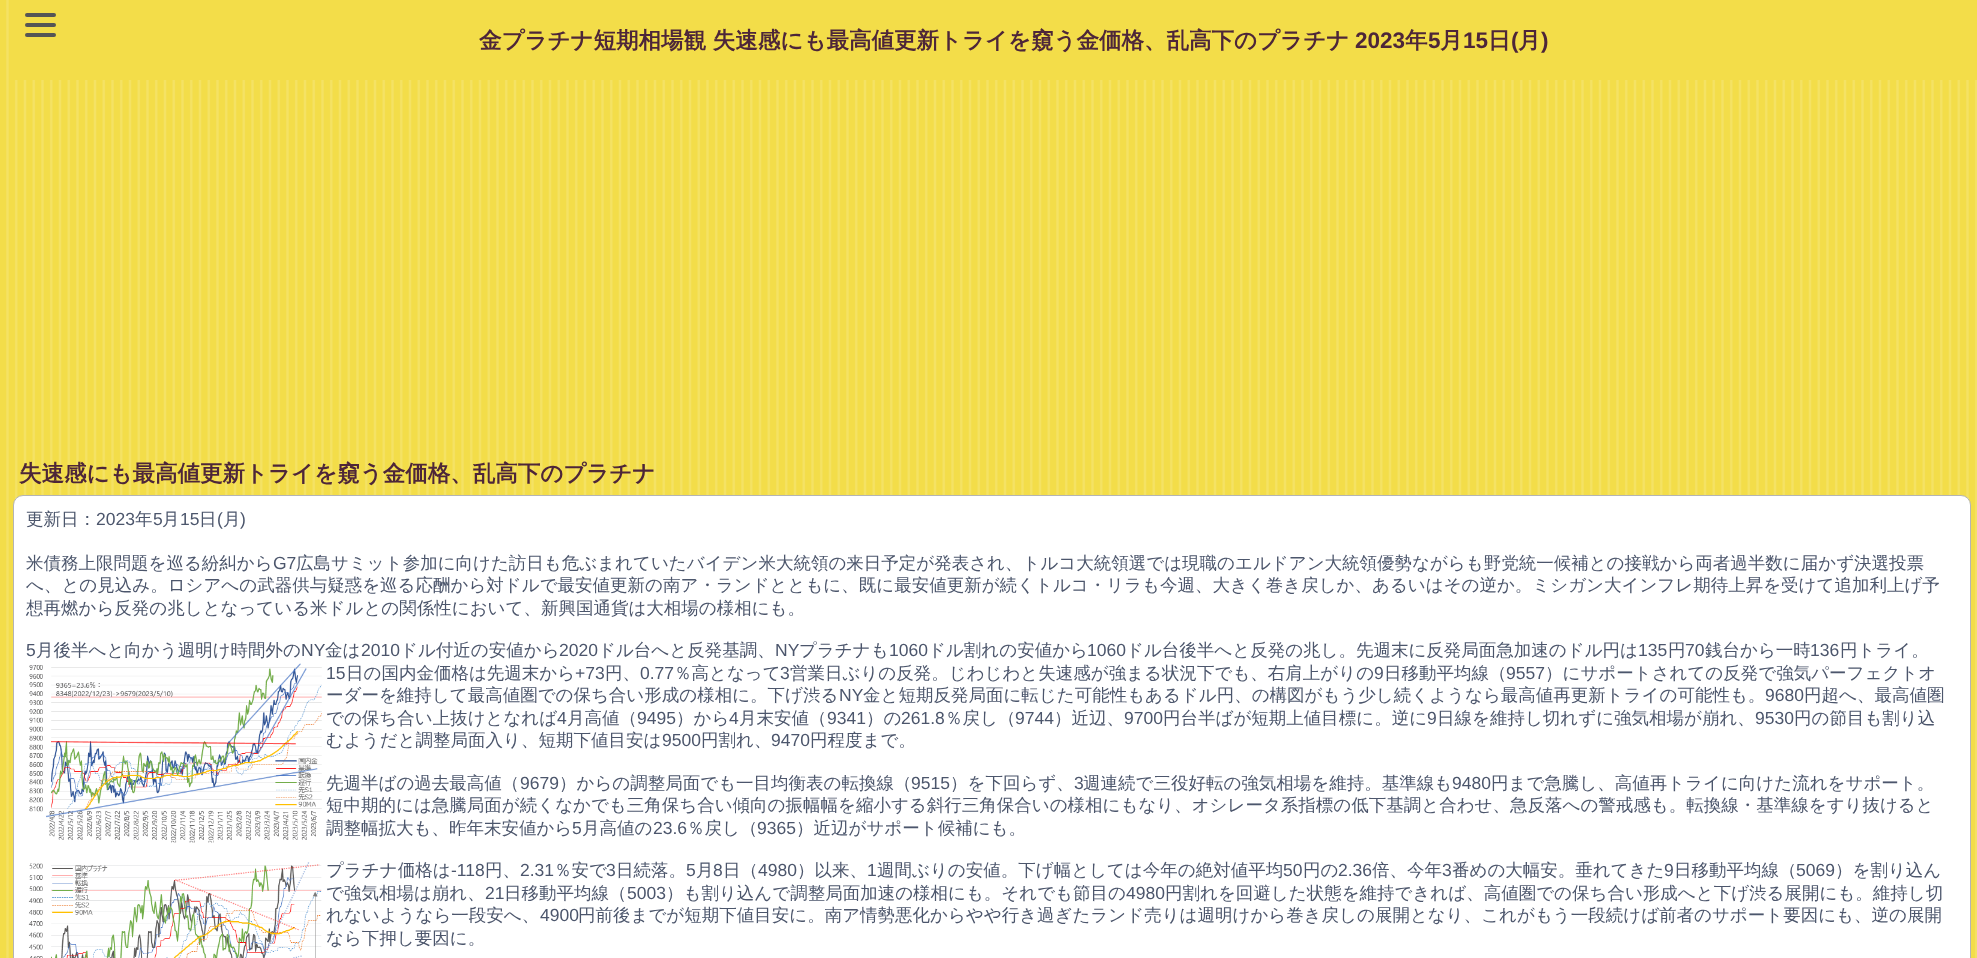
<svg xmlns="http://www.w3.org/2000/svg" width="1977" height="958">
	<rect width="100%" height="100%" fill="#F3DD49" />
	<image x="6" y="0" width="1971" height="958" href="assets/img1.png" />
	<rect x="14" y="0" width="1963" height="80" fill="#F3DD49" />
	<rect x="25" y="13" width="31" height="4" rx="2" fill="#555555" />
	<rect x="25" y="23" width="31" height="4" rx="2" fill="#555555" />
	<rect x="25" y="33" width="31" height="4" rx="2" fill="#555555" />
	<text x="479" y="48" font-family="WenQuanYi Zen Hei" font-size="22.5" font-weight="700" fill="#4D2639">金プラチナ短期相場観 失速感にも最高値更新トライを窺う金価格、乱高下のプラチナ</text>
	<text x="1355" y="48" font-family="Liberation Sans" font-size="22.5" font-weight="700" fill="#4D2639">2023</text>
	<text x="1405" y="48" font-family="WenQuanYi Zen Hei" font-size="22.5" font-weight="700" fill="#4D2639">年</text>
	<text x="1428" y="48" font-family="Liberation Sans" font-size="22.5" font-weight="700" fill="#4D2639">5</text>
	<text x="1440" y="48" font-family="WenQuanYi Zen Hei" font-size="22.5" font-weight="700" fill="#4D2639">月</text>
	<text x="1463" y="48" font-family="Liberation Sans" font-size="22.5" font-weight="700" fill="#4D2639">15</text>
	<text x="1488" y="48" font-family="WenQuanYi Zen Hei" font-size="22.5" font-weight="700" fill="#4D2639">日</text>
	<text x="1511" y="48" font-family="Liberation Sans" font-size="22.5" font-weight="700" fill="#4D2639">(</text>
	<text x="1518" y="48" font-family="WenQuanYi Zen Hei" font-size="22.5" font-weight="700" fill="#4D2639">月</text>
	<text x="1541" y="48" font-family="Liberation Sans" font-size="22.5" font-weight="700" fill="#4D2639">)</text>
	<text x="19" y="481" font-family="WenQuanYi Zen Hei" font-size="22.5" font-weight="700" fill="#4D2639">失速感にも最高値更新トライを窺う金価格、乱高下のプラチナ</text>
	<rect x="13.5" y="495.5" width="1957" height="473" rx="9.5" fill="#FFFFFF" stroke="#B4B4B4" />
	<text x="26" y="525" font-family="WenQuanYi Zen Hei" font-size="17.5" font-weight="500" fill="#4C566C">更新日：</text>
	<text x="96" y="525" font-family="Liberation Sans" font-size="17.5" fill="#4C566C">2023</text>
	<text x="135" y="525" font-family="WenQuanYi Zen Hei" font-size="17.5" font-weight="500" fill="#4C566C">年</text>
	<text x="153" y="525" font-family="Liberation Sans" font-size="17.5" fill="#4C566C">5</text>
	<text x="162" y="525" font-family="WenQuanYi Zen Hei" font-size="17.5" font-weight="500" fill="#4C566C">月</text>
	<text x="180" y="525" font-family="Liberation Sans" font-size="17.5" fill="#4C566C">15</text>
	<text x="199" y="525" font-family="WenQuanYi Zen Hei" font-size="17.5" font-weight="500" fill="#4C566C">日</text>
	<text x="217" y="525" font-family="Liberation Sans" font-size="17.5" fill="#4C566C">(</text>
	<text x="223" y="525" font-family="WenQuanYi Zen Hei" font-size="17.5" font-weight="500" fill="#4C566C">月</text>
	<text x="240" y="525" font-family="Liberation Sans" font-size="17.5" fill="#4C566C">)</text>
	<text x="26" y="569" font-family="WenQuanYi Zen Hei" font-size="17.5" font-weight="500" fill="#4C566C">米債務上限問題を巡る紛糾から</text>
	<text x="273" y="569" font-family="Liberation Sans" font-size="17.5" fill="#4C566C">G7</text>
	<g font-family="WenQuanYi Zen Hei" font-size="17.5" font-weight="500" fill="#4C566C">
		<text x="296" y="569">広島サミット参加に向けた訪日も危ぶまれていたバイデン米大統領の来日予定が発表され、トルコ大統領選では現職のエルドアン大統領優勢ながらも野党統一候補との接戦から両者過半数に届かず決選投票</text>
		<text x="26" y="591">へ、との見込み。ロシアへの武器供与疑惑を巡る応酬から対ドルで最安値更新の南ア・ランドとともに、既に最安値更新が続くトルコ・リラも今週、大きく巻き戻しか、あるいはその逆か。ミシガン大インフレ期待上昇を受けて追加利上げ予</text>
		<text x="26" y="614">想再燃から反発の兆しとなっている米ドルとの関係性において、新興国通貨は大相場の様相にも。</text>
	</g>
	<text x="26" y="656" font-family="Liberation Sans" font-size="17.5" fill="#4C566C">5</text>
	<text x="36" y="656" font-family="WenQuanYi Zen Hei" font-size="17.5" font-weight="500" fill="#4C566C">月後半へと向かう週明け時間外の</text>
	<text x="301" y="656" font-family="Liberation Sans" font-size="17.5" fill="#4C566C">NY</text>
	<text x="325" y="656" font-family="WenQuanYi Zen Hei" font-size="17.5" font-weight="500" fill="#4C566C">金は</text>
	<text x="361" y="656" font-family="Liberation Sans" font-size="17.5" fill="#4C566C">2010</text>
	<text x="400" y="656" font-family="WenQuanYi Zen Hei" font-size="17.5" font-weight="500" fill="#4C566C">ドル付近の安値から</text>
	<text x="559" y="656" font-family="Liberation Sans" font-size="17.5" fill="#4C566C">2020</text>
	<text x="598" y="656" font-family="WenQuanYi Zen Hei" font-size="17.5" font-weight="500" fill="#4C566C">ドル台へと反発基調、</text>
	<text x="775" y="656" font-family="Liberation Sans" font-size="17.5" fill="#4C566C">NY</text>
	<text x="799" y="656" font-family="WenQuanYi Zen Hei" font-size="17.5" font-weight="500" fill="#4C566C">プラチナも</text>
	<text x="889" y="656" font-family="Liberation Sans" font-size="17.5" fill="#4C566C">1060</text>
	<text x="928" y="656" font-family="WenQuanYi Zen Hei" font-size="17.5" font-weight="500" fill="#4C566C">ドル割れの安値から</text>
	<text x="1087" y="656" font-family="Liberation Sans" font-size="17.5" fill="#4C566C">1060</text>
	<text x="1126" y="656" font-family="WenQuanYi Zen Hei" font-size="17.5" font-weight="500" fill="#4C566C">ドル台後半へと反発の兆し。先週末に反発局面急加速のドル円は</text>
	<text x="1638" y="656" font-family="Liberation Sans" font-size="17.5" fill="#4C566C">135</text>
	<text x="1668" y="656" font-family="WenQuanYi Zen Hei" font-size="17.5" font-weight="500" fill="#4C566C">円</text>
	<text x="1685" y="656" font-family="Liberation Sans" font-size="17.5" fill="#4C566C">70</text>
	<text x="1705" y="656" font-family="WenQuanYi Zen Hei" font-size="17.5" font-weight="500" fill="#4C566C">銭台から一時</text>
	<text x="1810" y="656" font-family="Liberation Sans" font-size="17.5" fill="#4C566C">136</text>
	<text x="1840" y="656" font-family="WenQuanYi Zen Hei" font-size="17.5" font-weight="500" fill="#4C566C">円トライ。</text>
	<image x="29" y="663" width="293" height="180" href="assets/img2.png" />
	<text x="326" y="679" font-family="Liberation Sans" font-size="17.5" fill="#4C566C">15</text>
	<text x="346" y="679" font-family="WenQuanYi Zen Hei" font-size="17.5" font-weight="500" fill="#4C566C">日の国内金価格は先週末から</text>
	<text x="575" y="679" font-family="Liberation Sans" font-size="17.5" fill="#4C566C">+73</text>
	<text x="605" y="679" font-family="WenQuanYi Zen Hei" font-size="17.5" font-weight="500" fill="#4C566C">円、</text>
	<text x="640" y="679" font-family="Liberation Sans" font-size="17.5" fill="#4C566C">0.77</text>
	<text x="674" y="679" font-family="WenQuanYi Zen Hei" font-size="17.5" font-weight="500" fill="#4C566C">％高となって</text>
	<text x="780" y="679" font-family="Liberation Sans" font-size="17.5" fill="#4C566C">3</text>
	<text x="790" y="679" font-family="WenQuanYi Zen Hei" font-size="17.5" font-weight="500" fill="#4C566C">営業日ぶりの反発。じわじわと失速感が強まる状況下でも、右肩上がりの</text>
	<text x="1374" y="679" font-family="Liberation Sans" font-size="17.5" fill="#4C566C">9</text>
	<text x="1384" y="679" font-family="WenQuanYi Zen Hei" font-size="17.5" font-weight="500" fill="#4C566C">日移動平均線（</text>
	<text x="1506" y="679" font-family="Liberation Sans" font-size="17.5" fill="#4C566C">9557</text>
	<g font-family="WenQuanYi Zen Hei" font-size="17.5" font-weight="500" fill="#4C566C">
		<text x="1545" y="679">）にサポートされての反発で強気パーフェクトオ</text>
		<text x="326" y="701">ーダーを維持して最高値圏での保ち合い形成の様相に。下げ渋る</text>
	</g>
	<text x="839" y="701" font-family="Liberation Sans" font-size="17.5" fill="#4C566C">NY</text>
	<text x="863" y="701" font-family="WenQuanYi Zen Hei" font-size="17.5" font-weight="500" fill="#4C566C">金と短期反発局面に転じた可能性もあるドル円、の構図がもう少し続くようなら最高値再更新トライの可能性も。</text>
	<text x="1765" y="701" font-family="Liberation Sans" font-size="17.5" fill="#4C566C">9680</text>
	<g font-family="WenQuanYi Zen Hei" font-size="17.5" font-weight="500" fill="#4C566C">
		<text x="1804" y="701">円超へ、最高値圏</text>
		<text x="326" y="724">での保ち合い上抜けとなれば</text>
	</g>
	<text x="557" y="724" font-family="Liberation Sans" font-size="17.5" fill="#4C566C">4</text>
	<text x="567" y="724" font-family="WenQuanYi Zen Hei" font-size="17.5" font-weight="500" fill="#4C566C">月高値（</text>
	<text x="637" y="724" font-family="Liberation Sans" font-size="17.5" fill="#4C566C">9495</text>
	<text x="676" y="724" font-family="WenQuanYi Zen Hei" font-size="17.5" font-weight="500" fill="#4C566C">）から</text>
	<text x="729" y="724" font-family="Liberation Sans" font-size="17.5" fill="#4C566C">4</text>
	<text x="739" y="724" font-family="WenQuanYi Zen Hei" font-size="17.5" font-weight="500" fill="#4C566C">月末安値（</text>
	<text x="827" y="724" font-family="Liberation Sans" font-size="17.5" fill="#4C566C">9341</text>
	<text x="866" y="724" font-family="WenQuanYi Zen Hei" font-size="17.5" font-weight="500" fill="#4C566C">）の</text>
	<text x="901" y="724" font-family="Liberation Sans" font-size="17.5" fill="#4C566C">261.8</text>
	<text x="945" y="724" font-family="WenQuanYi Zen Hei" font-size="17.5" font-weight="500" fill="#4C566C">％戻し（</text>
	<text x="1015" y="724" font-family="Liberation Sans" font-size="17.5" fill="#4C566C">9744</text>
	<text x="1054" y="724" font-family="WenQuanYi Zen Hei" font-size="17.5" font-weight="500" fill="#4C566C">）近辺、</text>
	<text x="1124" y="724" font-family="Liberation Sans" font-size="17.5" fill="#4C566C">9700</text>
	<text x="1163" y="724" font-family="WenQuanYi Zen Hei" font-size="17.5" font-weight="500" fill="#4C566C">円台半ばが短期上値目標に。逆に</text>
	<text x="1427" y="724" font-family="Liberation Sans" font-size="17.5" fill="#4C566C">9</text>
	<text x="1437" y="724" font-family="WenQuanYi Zen Hei" font-size="17.5" font-weight="500" fill="#4C566C">日線を維持し切れずに強気相場が崩れ、</text>
	<text x="1755" y="724" font-family="Liberation Sans" font-size="17.5" fill="#4C566C">9530</text>
	<g font-family="WenQuanYi Zen Hei" font-size="17.5" font-weight="500" fill="#4C566C">
		<text x="1794" y="724">円の節目も割り込</text>
		<text x="326" y="746">むようだと調整局面入り、短期下値目安は</text>
	</g>
	<text x="662" y="746" font-family="Liberation Sans" font-size="17.5" fill="#4C566C">9500</text>
	<text x="701" y="746" font-family="WenQuanYi Zen Hei" font-size="17.5" font-weight="500" fill="#4C566C">円割れ、</text>
	<text x="771" y="746" font-family="Liberation Sans" font-size="17.5" fill="#4C566C">9470</text>
	<g font-family="WenQuanYi Zen Hei" font-size="17.5" font-weight="500" fill="#4C566C">
		<text x="810" y="746">円程度まで。</text>
		<text x="326" y="789">先週半ばの過去最高値（</text>
	</g>
	<text x="520" y="789" font-family="Liberation Sans" font-size="17.5" fill="#4C566C">9679</text>
	<text x="559" y="789" font-family="WenQuanYi Zen Hei" font-size="17.5" font-weight="500" fill="#4C566C">）からの調整局面でも一目均衡表の転換線（</text>
	<text x="911" y="789" font-family="Liberation Sans" font-size="17.5" fill="#4C566C">9515</text>
	<text x="950" y="789" font-family="WenQuanYi Zen Hei" font-size="17.5" font-weight="500" fill="#4C566C">）を下回らず、</text>
	<text x="1074" y="789" font-family="Liberation Sans" font-size="17.5" fill="#4C566C">3</text>
	<text x="1083" y="789" font-family="WenQuanYi Zen Hei" font-size="17.5" font-weight="500" fill="#4C566C">週連続で三役好転の強気相場を維持。基準線も</text>
	<text x="1452" y="789" font-family="Liberation Sans" font-size="17.5" fill="#4C566C">9480</text>
	<g font-family="WenQuanYi Zen Hei" font-size="17.5" font-weight="500" fill="#4C566C">
		<text x="1491" y="789">円まで急騰し、高値再トライに向けた流れをサポート。</text>
		<text x="326" y="811">短中期的には急騰局面が続くなかでも三角保ち合い傾向の振幅幅を縮小する斜行三角保合いの様相にもなり、オシレータ系指標の低下基調と合わせ、急反落への警戒感も。転換線・基準線をすり抜けると</text>
		<text x="326" y="834">調整幅拡大も、昨年末安値から</text>
	</g>
	<text x="572" y="834" font-family="Liberation Sans" font-size="17.5" fill="#4C566C">5</text>
	<text x="582" y="834" font-family="WenQuanYi Zen Hei" font-size="17.5" font-weight="500" fill="#4C566C">月高値の</text>
	<text x="653" y="834" font-family="Liberation Sans" font-size="17.5" fill="#4C566C">23.6</text>
	<text x="687" y="834" font-family="WenQuanYi Zen Hei" font-size="17.5" font-weight="500" fill="#4C566C">％戻し（</text>
	<text x="757" y="834" font-family="Liberation Sans" font-size="17.5" fill="#4C566C">9365</text>
	<text x="796" y="834" font-family="WenQuanYi Zen Hei" font-size="17.5" font-weight="500" fill="#4C566C">）近辺がサポート候補にも。</text>
	<image x="28" y="862" width="294" height="96" href="assets/img3.png" />
	<text x="326" y="876" font-family="WenQuanYi Zen Hei" font-size="17.5" font-weight="500" fill="#4C566C">プラチナ価格は</text>
	<text x="451" y="876" font-family="Liberation Sans" font-size="17.5" fill="#4C566C">-118</text>
	<text x="485" y="876" font-family="WenQuanYi Zen Hei" font-size="17.5" font-weight="500" fill="#4C566C">円、</text>
	<text x="520" y="876" font-family="Liberation Sans" font-size="17.5" fill="#4C566C">2.31</text>
	<text x="554" y="876" font-family="WenQuanYi Zen Hei" font-size="17.5" font-weight="500" fill="#4C566C">％安で</text>
	<text x="606" y="876" font-family="Liberation Sans" font-size="17.5" fill="#4C566C">3</text>
	<text x="616" y="876" font-family="WenQuanYi Zen Hei" font-size="17.5" font-weight="500" fill="#4C566C">日続落。</text>
	<text x="686" y="876" font-family="Liberation Sans" font-size="17.5" fill="#4C566C">5</text>
	<text x="696" y="876" font-family="WenQuanYi Zen Hei" font-size="17.5" font-weight="500" fill="#4C566C">月</text>
	<text x="713" y="876" font-family="Liberation Sans" font-size="17.5" fill="#4C566C">8</text>
	<text x="723" y="876" font-family="WenQuanYi Zen Hei" font-size="17.5" font-weight="500" fill="#4C566C">日（</text>
	<text x="758" y="876" font-family="Liberation Sans" font-size="17.5" fill="#4C566C">4980</text>
	<text x="797" y="876" font-family="WenQuanYi Zen Hei" font-size="17.5" font-weight="500" fill="#4C566C">）以来、</text>
	<text x="867" y="876" font-family="Liberation Sans" font-size="17.5" fill="#4C566C">1</text>
	<text x="877" y="876" font-family="WenQuanYi Zen Hei" font-size="17.5" font-weight="500" fill="#4C566C">週間ぶりの安値。下げ幅としては今年の絶対値平均</text>
	<text x="1283" y="876" font-family="Liberation Sans" font-size="17.5" fill="#4C566C">50</text>
	<text x="1303" y="876" font-family="WenQuanYi Zen Hei" font-size="17.5" font-weight="500" fill="#4C566C">円の</text>
	<text x="1338" y="876" font-family="Liberation Sans" font-size="17.5" fill="#4C566C">2.36</text>
	<text x="1372" y="876" font-family="WenQuanYi Zen Hei" font-size="17.5" font-weight="500" fill="#4C566C">倍、今年</text>
	<text x="1442" y="876" font-family="Liberation Sans" font-size="17.5" fill="#4C566C">3</text>
	<text x="1452" y="876" font-family="WenQuanYi Zen Hei" font-size="17.5" font-weight="500" fill="#4C566C">番めの大幅安。垂れてきた</text>
	<text x="1664" y="876" font-family="Liberation Sans" font-size="17.5" fill="#4C566C">9</text>
	<text x="1674" y="876" font-family="WenQuanYi Zen Hei" font-size="17.5" font-weight="500" fill="#4C566C">日移動平均線（</text>
	<text x="1796" y="876" font-family="Liberation Sans" font-size="17.5" fill="#4C566C">5069</text>
	<g font-family="WenQuanYi Zen Hei" font-size="17.5" font-weight="500" fill="#4C566C">
		<text x="1835" y="876">）を割り込ん</text>
		<text x="326" y="899">で強気相場は崩れ、</text>
	</g>
	<text x="485" y="899" font-family="Liberation Sans" font-size="17.5" fill="#4C566C">21</text>
	<text x="504" y="899" font-family="WenQuanYi Zen Hei" font-size="17.5" font-weight="500" fill="#4C566C">日移動平均線（</text>
	<text x="627" y="899" font-family="Liberation Sans" font-size="17.5" fill="#4C566C">5003</text>
	<text x="666" y="899" font-family="WenQuanYi Zen Hei" font-size="17.5" font-weight="500" fill="#4C566C">）も割り込んで調整局面加速の様相にも。それでも節目の</text>
	<text x="1126" y="899" font-family="Liberation Sans" font-size="17.5" fill="#4C566C">4980</text>
	<g font-family="WenQuanYi Zen Hei" font-size="17.5" font-weight="500" fill="#4C566C">
		<text x="1165" y="899">円割れを回避した状態を維持できれば、高値圏での保ち合い形成へと下げ渋る展開にも。維持し切</text>
		<text x="326" y="921">れないようなら一段安へ、</text>
	</g>
	<text x="540" y="921" font-family="Liberation Sans" font-size="17.5" fill="#4C566C">4900</text>
	<g font-family="WenQuanYi Zen Hei" font-size="17.5" font-weight="500" fill="#4C566C">
		<text x="578" y="921">円前後までが短期下値目安に。南ア情勢悪化からやや行き過ぎたランド売りは週明けから巻き戻しの展開となり、これがもう一段続けば前者のサポート要因にも、逆の展開</text>
		<text x="326" y="944">なら下押し要因に。</text>
	</g>
</svg>
